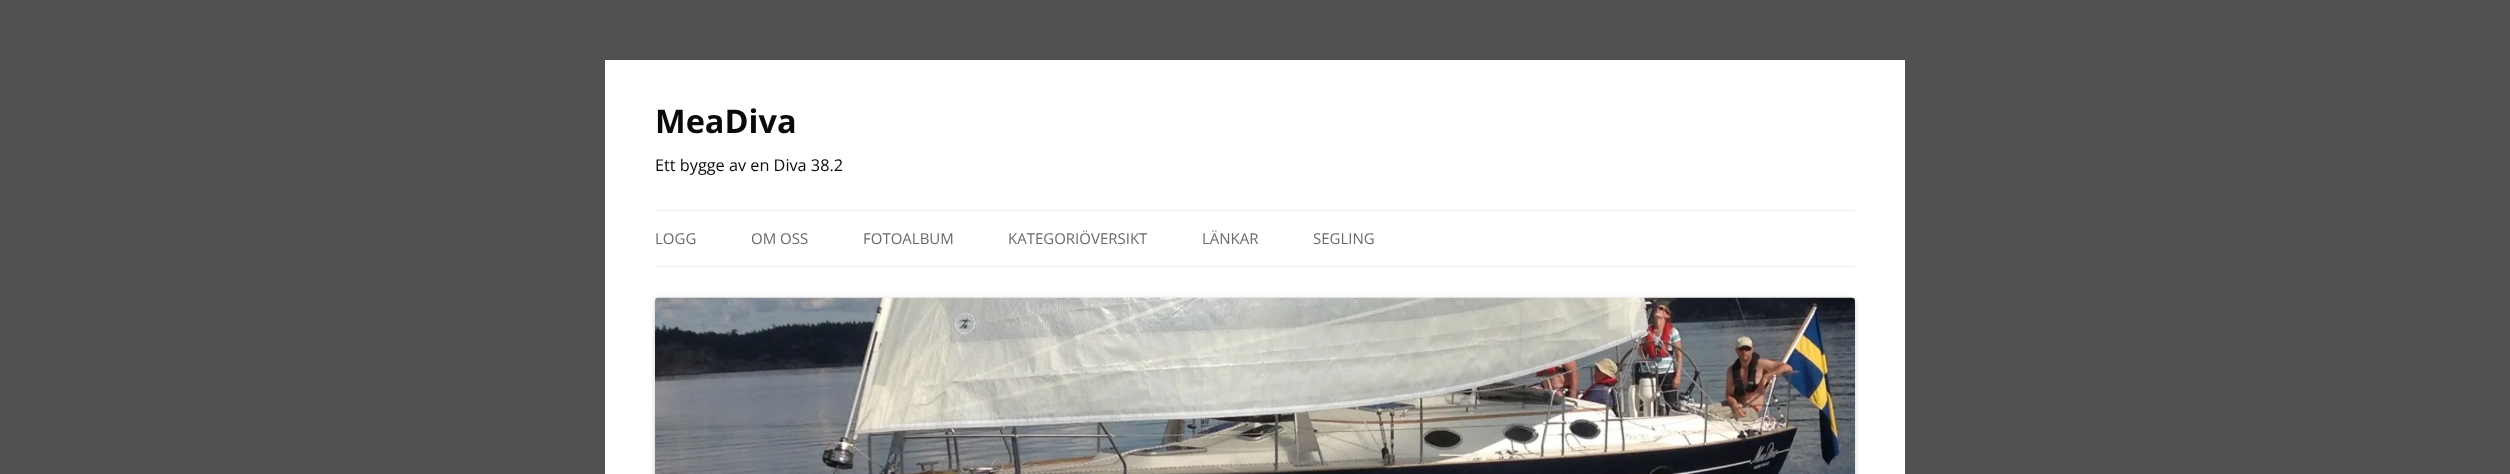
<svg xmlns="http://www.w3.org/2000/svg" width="2510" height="474">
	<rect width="100%" height="100%" fill="#515151" />
	<rect x="605" y="60" width="1300" height="414" fill="#FFFFFF" />
	<text x="655" y="133" font-family="Open Sans" font-size="32.5" font-weight="700" fill="#0A0A0A">MeaDiva</text>
	<text x="655" y="171" font-family="Open Sans" font-size="16.25" fill="#0A0A0A">Ett bygge av en Diva 38.2</text>
	<rect x="655" y="210" width="1200" height="1" fill="#EDEDED" />
	<rect x="655" y="266" width="1200" height="1" fill="#EDEDED" />
	<g font-family="Open Sans" font-size="15" fill="#6A6A6A">
		<text x="655" y="244">LOGG</text>
		<text x="751" y="244">OM OSS</text>
		<text x="863" y="244">FOTOALBUM</text>
		<text x="1008" y="244">KATEGORIÖVERSIKT</text>
		<text x="1202" y="244">LÄNKAR</text>
		<text x="1313" y="244">SEGLING</text>
	</g>
	<rect x="655" y="299" width="1200" height="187" rx="4" fill="#000000" fill-opacity="0.2" filter="blur(2.5px)" />
	<image x="655" y="297" width="1200" height="177" href="assets/img1.png" />
</svg>
